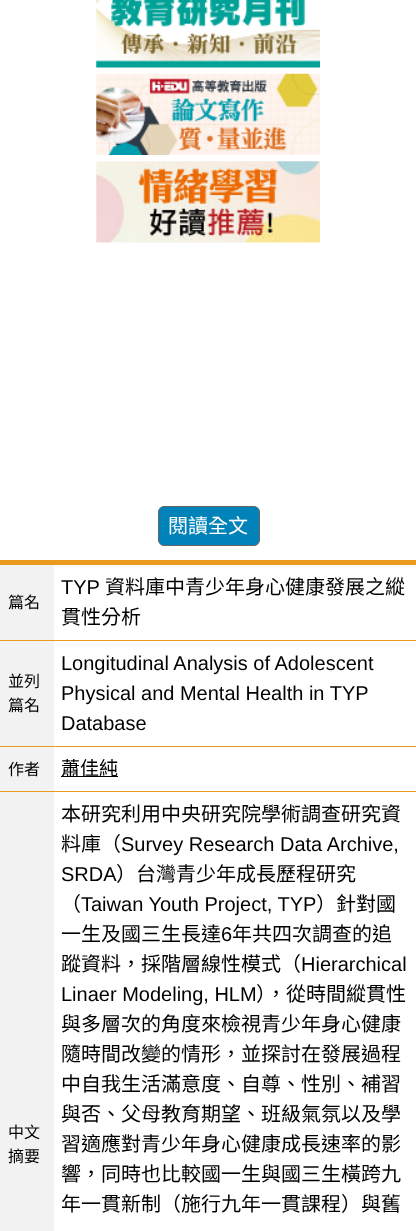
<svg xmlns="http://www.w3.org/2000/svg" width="416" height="1231">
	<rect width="100%" height="100%" fill="#FFFFFF" />
	<image x="96" y="0" width="224" height="68" href="assets/img1.png" />
	<image x="96" y="73" width="224" height="82" href="assets/img2.png" />
	<image x="96" y="161" width="224" height="82" href="assets/img3.png" />
	<rect x="0" y="560" width="416" height="5" fill="#EA9A1C" />
	<rect x="158.5" y="506.5" width="101" height="39" rx="5.5" fill="#0183B9" stroke="#666666" />
	<text x="168" y="533" font-family="Noto Sans CJK TC" font-size="20" fill="#FFFFFF">閱讀全文</text>
	<rect x="0" y="565" width="54" height="75" fill="#F2F2F2" />
	<text x="8" y="608" font-family="Noto Sans CJK TC" font-size="16" fill="#000000">篇名</text>
	<text x="61" y="594" font-family="Liberation Sans" font-size="20" fill="#000000">TYP</text>
	<g font-family="Noto Sans CJK TC" font-size="20" fill="#000000">
		<text x="105" y="594">資料庫中青少年身心健康發展之縱</text>
		<text x="61" y="624">貫性分析</text>
	</g>
	<rect x="0" y="641" width="54" height="150" fill="#F2F2F2" />
	<g font-family="Noto Sans CJK TC" font-size="16" fill="#000000">
		<text x="8" y="687">並列</text>
		<text x="8" y="711">篇名</text>
	</g>
	<rect x="0" y="640" width="416" height="1" fill="#EA9A1C" />
	<g font-family="Liberation Sans" font-size="20" fill="#000000">
		<text x="61" y="670">Longitudinal Analysis of Adolescent</text>
		<text x="61" y="700">Physical and Mental Health in TYP</text>
		<text x="61" y="730">Database</text>
	</g>
	<text x="8" y="775" font-family="Noto Sans CJK TC" font-size="16" fill="#000000">作者</text>
	<rect x="0" y="746" width="416" height="1" fill="#EA9A1C" />
	<rect x="61" y="776" width="57" height="1" fill="#000000" />
	<text x="61" y="775" font-family="Noto Sans CJK TC" font-size="19" fill="#000000">蕭佳純</text>
	<rect x="0" y="792" width="54" height="439" fill="#F2F2F2" />
	<g font-family="Noto Sans CJK TC" font-size="16" fill="#000000">
		<text x="8" y="1138">中文</text>
		<text x="8" y="1162">摘要</text>
	</g>
	<rect x="0" y="791" width="416" height="1" fill="#EA9A1C" />
	<g font-family="Noto Sans CJK TC" font-size="20" fill="#000000">
		<text x="61" y="821">本研究利用中央研究院學術調查研究資</text>
		<text x="61" y="851">料庫（</text>
	</g>
	<g font-family="Liberation Sans" font-size="20" fill="#000000">
		<text x="121" y="851">Survey Research Data Archive,</text>
		<text x="61" y="881">SRDA</text>
	</g>
	<g font-family="Noto Sans CJK TC" font-size="20" fill="#000000">
		<text x="116" y="881">）台灣青少年成長歷程研究</text>
		<text x="61" y="911">（</text>
	</g>
	<text x="81" y="911" font-family="Liberation Sans" font-size="20" fill="#000000">Taiwan Youth Project, TYP</text>
	<g font-family="Noto Sans CJK TC" font-size="20" fill="#000000">
		<text x="316" y="911">）針對國</text>
		<text x="61" y="941">一生及國三生長達</text>
	</g>
	<text x="221" y="941" font-family="Liberation Sans" font-size="20" fill="#000000">6</text>
	<g font-family="Noto Sans CJK TC" font-size="20" fill="#000000">
		<text x="232" y="941">年共四次調查的追</text>
		<text x="61" y="971">蹤資料，採階層線性模式（</text>
	</g>
	<g font-family="Liberation Sans" font-size="20" fill="#000000">
		<text x="301" y="971">Hierarchical</text>
		<text x="61" y="1001">Linaer Modeling, HLM</text>
	</g>
	<g font-family="Noto Sans CJK TC" font-size="20" fill="#000000">
		<text x="256" y="1001">），從時間縱貫性</text>
		<text x="61" y="1031">與多層次的角度來檢視青少年身心健康</text>
		<text x="61" y="1061">隨時間改變的情形，並探討在發展過程</text>
		<text x="61" y="1091">中自我生活滿意度、自尊、性別、補習</text>
		<text x="61" y="1121">與否、父母教育期望、班級氣氛以及學</text>
		<text x="61" y="1151">習適應對青少年身心健康成長速率的影</text>
		<text x="61" y="1181">響，同時也比較國一生與國三生橫跨九</text>
		<text x="61" y="1211">年一貫新制（施行九年一貫課程）與舊</text>
	</g>
</svg>
